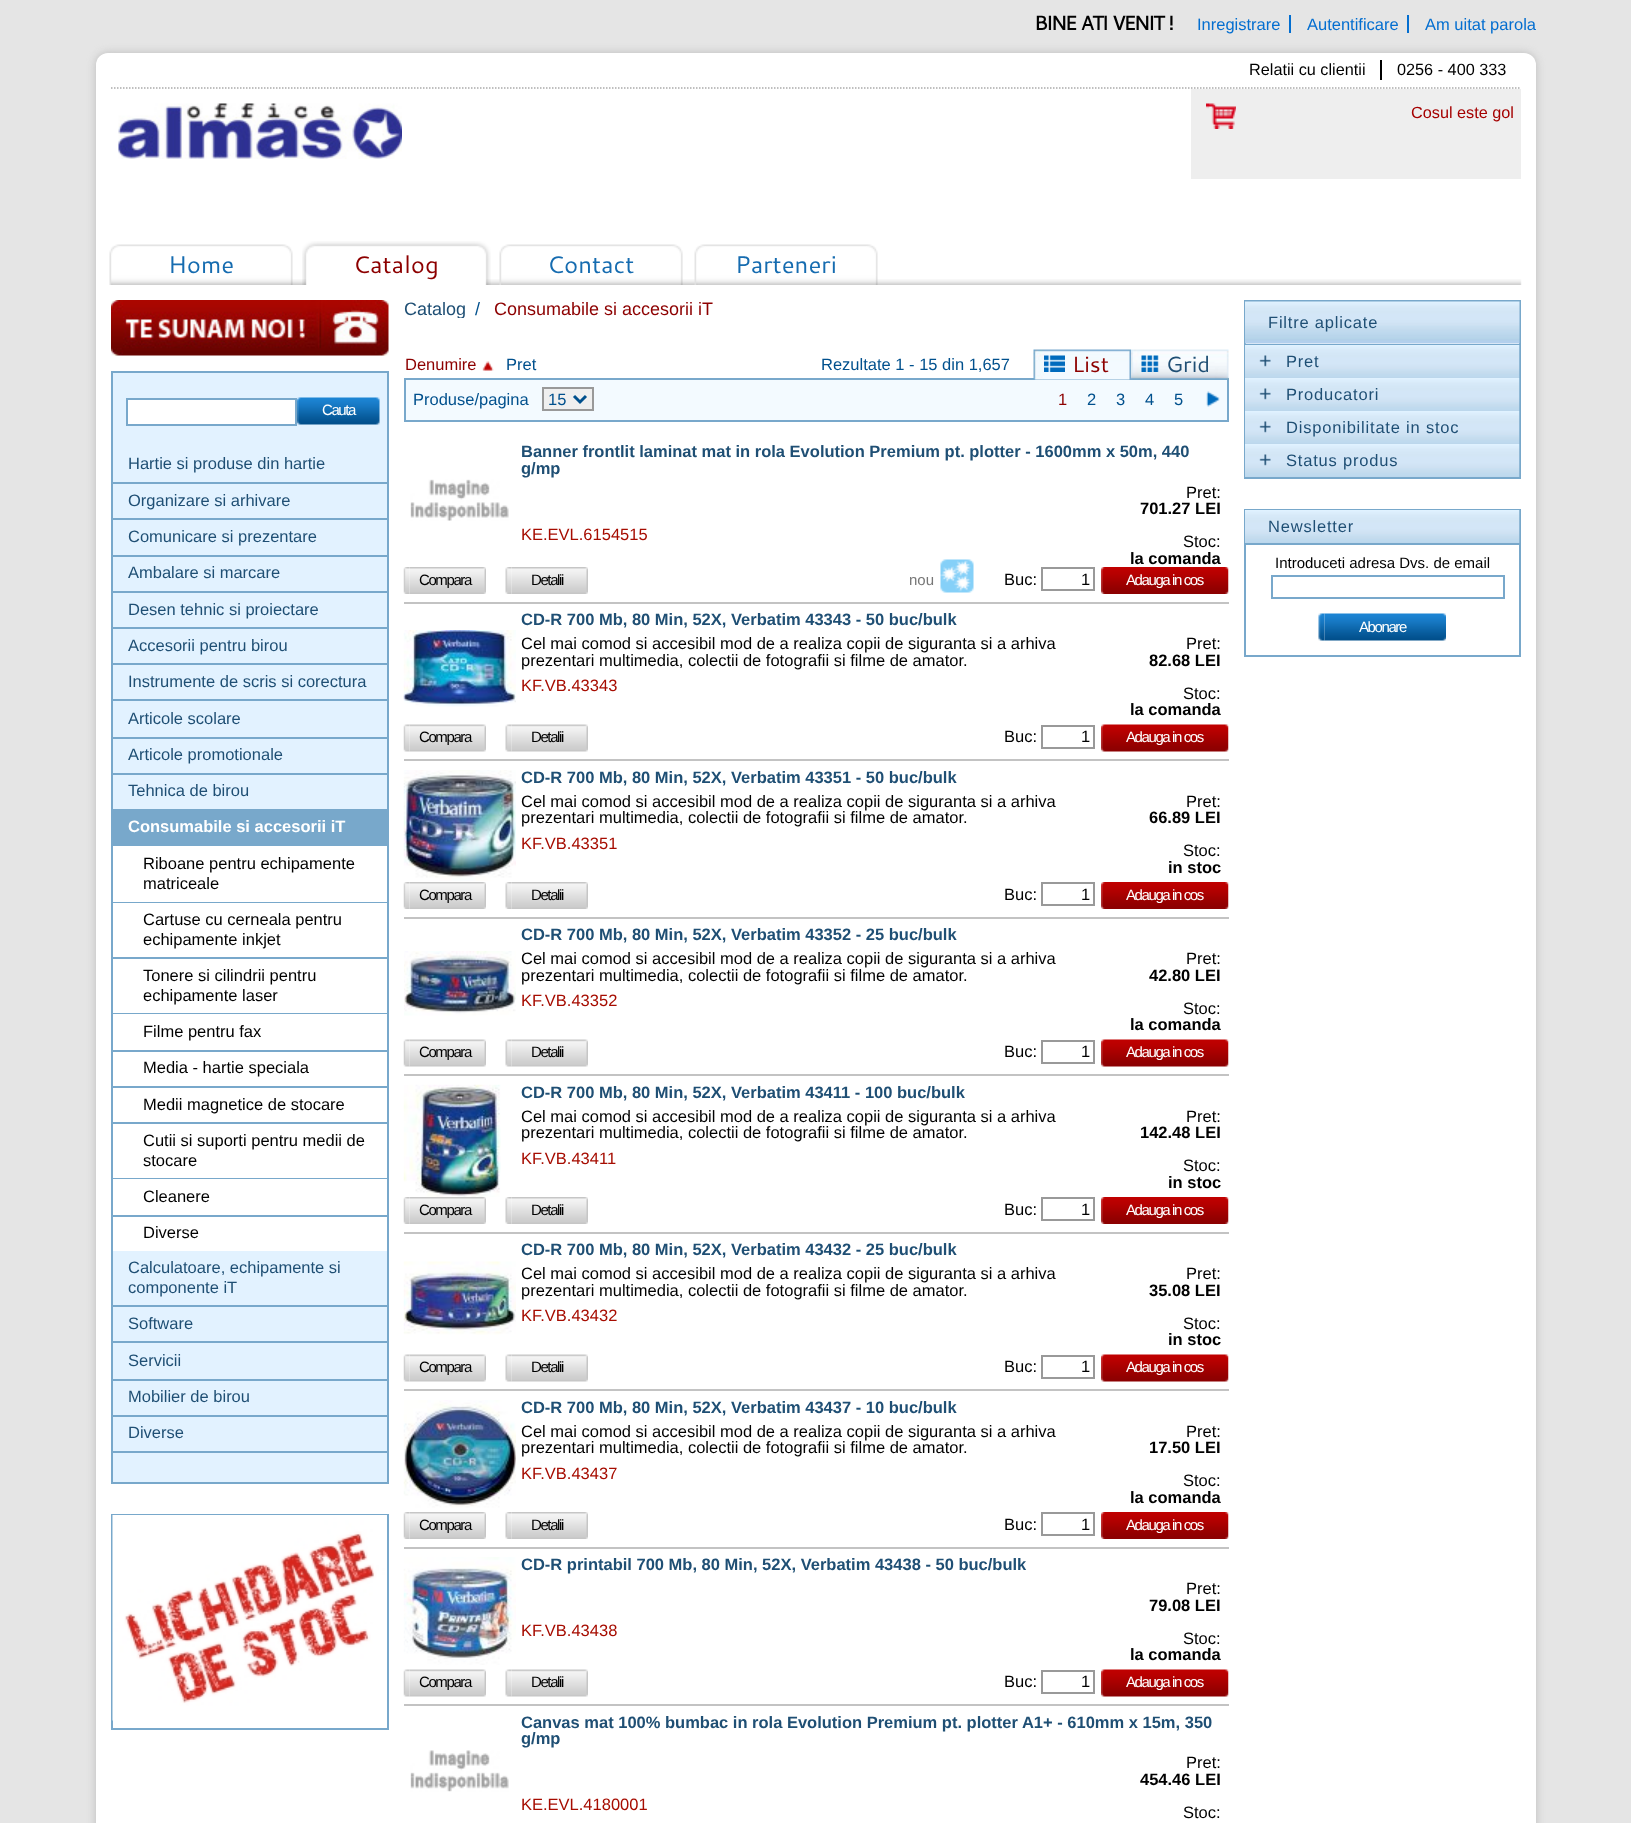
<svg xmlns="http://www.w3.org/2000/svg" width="1631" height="1823">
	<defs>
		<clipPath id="clip1"><rect x="404" y="300" width="61" height="18" /></clipPath>
	</defs>
	<rect width="100%" height="100%" fill="#E5E5E5" />
	<text x="1034" y="30" word-spacing="2" font-family="Cantarell" font-size="19.75" font-weight="700" letter-spacing="-2" fill="#000000">BINE ATI VENIT !</text>
	<g font-family="Liberation Sans" font-size="16.5" fill="#036ED0">
		<text x="1197" y="30">Inregistrare</text>
		<text x="1307" y="30">Autentificare</text>
	</g>
	<rect x="1289" y="15" width="2" height="18" fill="#036ED0" />
	<text x="1425" y="30" font-family="Liberation Sans" font-size="16.5" fill="#036ED0">Am uitat parola</text>
	<rect x="1407" y="15" width="2" height="18" fill="#036ED0" />
	<rect x="96" y="53" width="1440" height="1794" rx="12" fill="#BBBBBB" filter="blur(4px)" />
	<rect x="96" y="53" width="1440" height="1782" rx="12" fill="#FFFFFF" />
	<rect x="1380" y="60" width="2" height="20" fill="#000000" />
	<g font-family="Liberation Sans" font-size="16.25" fill="#000000">
		<text x="1249" y="75">Relatii cu clientii</text>
		<text x="1397" y="75">0256 - 400 333</text>
	</g>
	<path d="M111 88H1521" fill="none" stroke="#AAAAAA" stroke-width="1.5" stroke-dasharray="1.5 1.5" />
	<image x="118" y="103" width="284" height="56" href="assets/img1.png" />
	<rect x="1191" y="89" width="330" height="90" fill="#EEEEEE" />
	<image x="1206" y="103" width="30" height="26" href="assets/img2.png" />
	<text x="1411" y="118" font-family="Liberation Sans" font-size="16.25" fill="#A50000">Cosul este gol</text>
	<image x="292" y="279" width="1230" height="6" href="assets/img3.png" />
	<image x="109" y="244" width="184" height="41" href="assets/img4.png" />
	<text x="168" y="273" font-family="Cantarell" font-size="24" fill="#166CB0">Home</text>
	<image x="302" y="241" width="189" height="44" href="assets/img5.png" />
	<text x="353" y="273" font-family="Cantarell" font-size="24" fill="#8D0000">Catalog</text>
	<image x="499" y="244" width="184" height="41" href="assets/img6.png" />
	<text x="547" y="273" font-family="Cantarell" font-size="24" fill="#166CB0">Contact</text>
	<image x="694" y="244" width="184" height="41" href="assets/img7.png" />
	<text x="735" y="273" font-family="Cantarell" font-size="24" fill="#166CB0">Parteneri</text>
	<image x="111" y="300" width="278" height="56" href="assets/img8.png" />
	<rect x="112" y="372" width="276" height="1111" fill="#E2F2FF" stroke="#78A8CB" stroke-width="2" />
	<rect x="127" y="399" width="169" height="26" fill="#FFFFFF" stroke="#78A8CB" stroke-width="2" />
	<image x="303" y="397" width="77" height="28" href="assets/img9.png" />
	<image x="297" y="397" width="6" height="28" href="assets/img10.png" />
	<text x="322" y="415" font-family="Liberation Sans" font-size="15" letter-spacing="-1.4" fill="#FFFFFF">Cauta</text>
	<rect x="113" y="482" width="274" height="2" fill="#78A8CB" />
	<text x="128" y="469" font-family="Liberation Sans" font-size="16.5" fill="#1F4F74">Hartie si produse din hartie</text>
	<rect x="113" y="518" width="274" height="2" fill="#78A8CB" />
	<text x="128" y="506" font-family="Liberation Sans" font-size="16.5" fill="#1F4F74">Organizare si arhivare</text>
	<rect x="113" y="555" width="274" height="2" fill="#78A8CB" />
	<text x="128" y="542" font-family="Liberation Sans" font-size="16.5" fill="#1F4F74">Comunicare si prezentare</text>
	<rect x="113" y="591" width="274" height="2" fill="#78A8CB" />
	<text x="128" y="578" font-family="Liberation Sans" font-size="16.5" fill="#1F4F74">Ambalare si marcare</text>
	<rect x="113" y="627" width="274" height="2" fill="#78A8CB" />
	<text x="128" y="615" font-family="Liberation Sans" font-size="16.5" fill="#1F4F74">Desen tehnic si proiectare</text>
	<rect x="113" y="663" width="274" height="2" fill="#78A8CB" />
	<text x="128" y="651" font-family="Liberation Sans" font-size="16.5" fill="#1F4F74">Accesorii pentru birou</text>
	<rect x="113" y="699" width="274" height="2" fill="#78A8CB" />
	<text x="128" y="687" font-family="Liberation Sans" font-size="16.5" fill="#1F4F74">Instrumente de scris si corectura</text>
	<rect x="113" y="737" width="274" height="2" fill="#78A8CB" />
	<text x="128" y="724" font-family="Liberation Sans" font-size="16.5" fill="#1F4F74">Articole scolare</text>
	<rect x="113" y="773" width="274" height="2" fill="#78A8CB" />
	<text x="128" y="760" font-family="Liberation Sans" font-size="16.5" fill="#1F4F74">Articole promotionale</text>
	<rect x="113" y="809" width="274" height="1" fill="#78A8CB" />
	<text x="128" y="796" font-family="Liberation Sans" font-size="16.5" fill="#1F4F74">Tehnica de birou</text>
	<rect x="113" y="810" width="274" height="36" fill="#78A8CB" />
	<text x="128" y="832" font-family="Liberation Sans" font-size="16.5" font-weight="700" fill="#FFFFFF">Consumabile si accesorii iT</text>
	<rect x="113" y="902" width="274" height="1" fill="#78A8CB" />
	<rect x="113" y="846" width="274" height="56" fill="#FFFFFF" />
	<g font-family="Liberation Sans" font-size="16.5" fill="#000000">
		<text x="143" y="869">Riboane pentru echipamente</text>
		<text x="143" y="889">matriceale</text>
	</g>
	<rect x="113" y="957" width="274" height="2" fill="#78A8CB" />
	<rect x="113" y="903" width="274" height="54" fill="#FFFFFF" />
	<g font-family="Liberation Sans" font-size="16.5" fill="#000000">
		<text x="143" y="925">Cartuse cu cerneala pentru</text>
		<text x="143" y="945">echipamente inkjet</text>
	</g>
	<rect x="113" y="1013" width="274" height="1" fill="#78A8CB" />
	<rect x="113" y="959" width="274" height="54" fill="#FFFFFF" />
	<g font-family="Liberation Sans" font-size="16.5" fill="#000000">
		<text x="143" y="981">Tonere si cilindrii pentru</text>
		<text x="143" y="1001">echipamente laser</text>
	</g>
	<rect x="113" y="1050" width="274" height="2" fill="#78A8CB" />
	<rect x="113" y="1014" width="274" height="36" fill="#FFFFFF" />
	<text x="143" y="1037" font-family="Liberation Sans" font-size="16.5" fill="#000000">Filme pentru fax</text>
	<rect x="113" y="1086" width="274" height="2" fill="#78A8CB" />
	<rect x="113" y="1052" width="274" height="34" fill="#FFFFFF" />
	<text x="143" y="1073" font-family="Liberation Sans" font-size="16.5" fill="#000000">Media - hartie speciala</text>
	<rect x="113" y="1122" width="274" height="2" fill="#78A8CB" />
	<rect x="113" y="1088" width="274" height="34" fill="#FFFFFF" />
	<text x="143" y="1110" font-family="Liberation Sans" font-size="16.5" fill="#000000">Medii magnetice de stocare</text>
	<rect x="113" y="1178" width="274" height="1" fill="#78A8CB" />
	<rect x="113" y="1124" width="274" height="54" fill="#FFFFFF" />
	<g font-family="Liberation Sans" font-size="16.5" fill="#000000">
		<text x="143" y="1146">Cutii si suporti pentru medii de</text>
		<text x="143" y="1166">stocare</text>
	</g>
	<rect x="113" y="1215" width="274" height="2" fill="#78A8CB" />
	<rect x="113" y="1179" width="274" height="36" fill="#FFFFFF" />
	<text x="143" y="1202" font-family="Liberation Sans" font-size="16.5" fill="#000000">Cleanere</text>
	<rect x="113" y="1217" width="274" height="34" fill="#FFFFFF" />
	<text x="143" y="1238" font-family="Liberation Sans" font-size="16.5" fill="#000000">Diverse</text>
	<rect x="113" y="1305" width="274" height="2" fill="#78A8CB" />
	<g font-family="Liberation Sans" font-size="16.5" fill="#1F4F74">
		<text x="128" y="1273">Calculatoare, echipamente si</text>
		<text x="128" y="1293">componente iT</text>
	</g>
	<rect x="113" y="1341" width="274" height="2" fill="#78A8CB" />
	<text x="128" y="1329" font-family="Liberation Sans" font-size="16.5" fill="#1F4F74">Software</text>
	<rect x="113" y="1379" width="274" height="2" fill="#78A8CB" />
	<text x="128" y="1366" font-family="Liberation Sans" font-size="16.5" fill="#1F4F74">Servicii</text>
	<rect x="113" y="1415" width="274" height="2" fill="#78A8CB" />
	<text x="128" y="1402" font-family="Liberation Sans" font-size="16.5" fill="#1F4F74">Mobilier de birou</text>
	<rect x="113" y="1451" width="274" height="2" fill="#78A8CB" />
	<text x="128" y="1438" font-family="Liberation Sans" font-size="16.5" fill="#1F4F74">Diverse</text>
	<rect x="112" y="1515" width="276" height="214" fill="none" stroke="#78A8CB" stroke-width="2" />
	<image x="112" y="1515" width="275" height="206" href="assets/img11.png" />
	<g clip-path="url(#clip1)">
		<text x="404" y="315" font-family="Liberation Sans" font-size="18" fill="#1F4F74">Catalog</text>
	</g>
	<text x="475" y="315" font-family="Liberation Sans" font-size="18" fill="#00508D">/</text>
	<text x="494" y="315" font-family="Liberation Sans" font-size="18" fill="#8D0000">Consumabile si accesorii iT</text>
	<rect x="405" y="379" width="823" height="42" fill="#F3FAFF" stroke="#78A8CB" stroke-width="2" />
	<image x="1033" y="349" width="98" height="31" href="assets/img12.png" />
	<image x="1044" y="355" width="21" height="17" href="assets/img13.png" />
	<text x="1072" y="372" font-family="Cantarell" font-size="22" fill="#8D0000">List</text>
	<image x="1131" y="349" width="98" height="31" href="assets/img14.png" />
	<image x="1141" y="355" width="18" height="17" href="assets/img15.png" />
	<text x="1166" y="372" font-family="Cantarell" font-size="22" fill="#1F4F74">Grid</text>
	<text x="405" y="370" font-family="Liberation Sans" font-size="16.5" fill="#8D0000">Denumire</text>
	<image x="482" y="361" width="12" height="10" href="assets/img16.png" />
	<g font-family="Liberation Sans" font-size="16.5" fill="#00508D">
		<text x="506" y="370">Pret</text>
		<text x="821" y="370">Rezultate 1 - 15 din 1,657</text>
		<text x="413" y="405">Produse/pagina</text>
	</g>
	<rect x="543" y="388" width="50" height="22" fill="#EFEFEF" stroke="#999999" stroke-width="2" />
	<path d="M574 396L580 402L586 396" fill="none" stroke="#00508D" stroke-width="3" />
	<text x="548" y="405" font-family="Liberation Sans" font-size="16.5" fill="#00508D">15</text>
	<text x="1058" y="405" font-family="Liberation Sans" font-size="16.5" fill="#8D0000">1</text>
	<g font-family="Liberation Sans" font-size="16.5" fill="#00508D">
		<text x="1087" y="405">2</text>
		<text x="1116" y="405">3</text>
		<text x="1145" y="405">4</text>
		<text x="1174" y="405">5</text>
	</g>
	<image x="1206" y="391" width="14" height="16" href="assets/img17.png" />
	<rect x="404" y="602" width="825" height="2" fill="#C3C3C3" />
	<g font-family="Liberation Sans" font-size="16.5" font-weight="700" fill="#1F4F74">
		<text x="521" y="457">Banner frontlit laminat mat in rola Evolution Premium pt. plotter - 1600mm x 50m, 440</text>
		<text x="521" y="474">g/mp</text>
	</g>
	<image x="410" y="479" width="99" height="42" href="assets/img18.png" />
	<text x="521" y="540" font-family="Liberation Sans" font-size="16.5" fill="#A60C01">KE.EVL.6154515</text>
	<text x="1186" y="498" font-family="Liberation Sans" font-size="16.5" fill="#000000">Pret:</text>
	<text x="1140" y="514" font-family="Liberation Sans" font-size="16.5" font-weight="700" fill="#000000">701.27 LEI</text>
	<text x="1183" y="547" font-family="Liberation Sans" font-size="16.5" fill="#000000">Stoc:</text>
	<text x="1130" y="564" font-family="Liberation Sans" font-size="16.5" font-weight="700" fill="#000000">la comanda</text>
	<image x="409" y="567" width="77" height="27" href="assets/img19.png" />
	<image x="403" y="567" width="7" height="27" href="assets/img20.png" />
	<text x="419" y="585" font-family="Liberation Sans" font-size="15" letter-spacing="-1.4" fill="#000000">Compara</text>
	<image x="511" y="567" width="77" height="27" href="assets/img21.png" />
	<image x="505" y="567" width="7" height="27" href="assets/img22.png" />
	<text x="531" y="585" font-family="Liberation Sans" font-size="15" letter-spacing="-1.4" fill="#000000">Detalii</text>
	<image x="940" y="559" width="34" height="34" href="assets/img23.png" />
	<text x="909" y="585" font-family="Liberation Sans" font-size="15" fill="#777777">nou</text>
	<text x="1004" y="585" font-family="Liberation Sans" font-size="16.5" fill="#000000">Buc:</text>
	<rect x="1042" y="568" width="52" height="22" fill="none" stroke="#999999" stroke-width="2" />
	<text x="1081" y="585" font-family="Liberation Sans" font-size="16.5" fill="#000000">1</text>
	<image x="1107" y="567" width="122" height="27" href="assets/img24.png" />
	<image x="1101" y="567" width="6" height="27" href="assets/img25.png" />
	<text x="1126" y="585" font-family="Liberation Sans" font-size="15" letter-spacing="-1.4" fill="#FFFFFF">Adauga in cos</text>
	<rect x="404" y="759" width="825" height="2" fill="#C3C3C3" />
	<text x="521" y="625" font-family="Liberation Sans" font-size="16.5" font-weight="700" fill="#1F4F74">CD-R 700 Mb, 80 Min, 52X, Verbatim 43343 - 50 buc/bulk</text>
	<image x="403" y="630" width="113" height="77" href="assets/img26.png" />
	<g font-family="Liberation Sans" font-size="16.5" fill="#000000">
		<text x="521" y="649">Cel mai comod si accesibil mod de a realiza copii de siguranta si a arhiva</text>
		<text x="521" y="666">prezentari multimedia, colectii de fotografii si filme de amator.</text>
	</g>
	<text x="521" y="691" font-family="Liberation Sans" font-size="16.5" fill="#A60C01">KF.VB.43343</text>
	<text x="1186" y="649" font-family="Liberation Sans" font-size="16.5" fill="#000000">Pret:</text>
	<text x="1149" y="666" font-family="Liberation Sans" font-size="16.5" font-weight="700" fill="#000000">82.68 LEI</text>
	<text x="1183" y="699" font-family="Liberation Sans" font-size="16.5" fill="#000000">Stoc:</text>
	<text x="1130" y="715" font-family="Liberation Sans" font-size="16.5" font-weight="700" fill="#000000">la comanda</text>
	<image x="409" y="724" width="77" height="28" href="assets/img27.png" />
	<image x="403" y="724" width="7" height="28" href="assets/img28.png" />
	<text x="419" y="742" font-family="Liberation Sans" font-size="15" letter-spacing="-1.4" fill="#000000">Compara</text>
	<image x="511" y="724" width="77" height="28" href="assets/img29.png" />
	<image x="505" y="724" width="7" height="28" href="assets/img30.png" />
	<text x="531" y="742" font-family="Liberation Sans" font-size="15" letter-spacing="-1.4" fill="#000000">Detalii</text>
	<text x="1004" y="742" font-family="Liberation Sans" font-size="16.5" fill="#000000">Buc:</text>
	<rect x="1042" y="726" width="52" height="22" fill="none" stroke="#999999" stroke-width="2" />
	<text x="1081" y="742" font-family="Liberation Sans" font-size="16.5" fill="#000000">1</text>
	<image x="1107" y="724" width="122" height="28" href="assets/img31.png" />
	<image x="1101" y="724" width="6" height="28" href="assets/img32.png" />
	<text x="1126" y="742" font-family="Liberation Sans" font-size="15" letter-spacing="-1.4" fill="#FFFFFF">Adauga in cos</text>
	<rect x="404" y="917" width="825" height="2" fill="#C3C3C3" />
	<image x="403" y="770" width="113" height="111" href="assets/img33.png" />
	<text x="521" y="783" font-family="Liberation Sans" font-size="16.5" font-weight="700" fill="#1F4F74">CD-R 700 Mb, 80 Min, 52X, Verbatim 43351 - 50 buc/bulk</text>
	<g font-family="Liberation Sans" font-size="16.5" fill="#000000">
		<text x="521" y="807">Cel mai comod si accesibil mod de a realiza copii de siguranta si a arhiva</text>
		<text x="521" y="823">prezentari multimedia, colectii de fotografii si filme de amator.</text>
	</g>
	<text x="521" y="849" font-family="Liberation Sans" font-size="16.5" fill="#A60C01">KF.VB.43351</text>
	<text x="1186" y="807" font-family="Liberation Sans" font-size="16.5" fill="#000000">Pret:</text>
	<text x="1149" y="823" font-family="Liberation Sans" font-size="16.5" font-weight="700" fill="#000000">66.89 LEI</text>
	<text x="1183" y="856" font-family="Liberation Sans" font-size="16.5" fill="#000000">Stoc:</text>
	<text x="1168" y="873" font-family="Liberation Sans" font-size="16.5" font-weight="700" fill="#000000">in stoc</text>
	<image x="409" y="882" width="77" height="27" href="assets/img19.png" />
	<image x="403" y="882" width="7" height="27" href="assets/img20.png" />
	<text x="419" y="900" font-family="Liberation Sans" font-size="15" letter-spacing="-1.4" fill="#000000">Compara</text>
	<image x="511" y="882" width="77" height="27" href="assets/img21.png" />
	<image x="505" y="882" width="7" height="27" href="assets/img22.png" />
	<text x="531" y="900" font-family="Liberation Sans" font-size="15" letter-spacing="-1.4" fill="#000000">Detalii</text>
	<text x="1004" y="900" font-family="Liberation Sans" font-size="16.5" fill="#000000">Buc:</text>
	<rect x="1042" y="883" width="52" height="22" fill="none" stroke="#999999" stroke-width="2" />
	<text x="1081" y="900" font-family="Liberation Sans" font-size="16.5" fill="#000000">1</text>
	<image x="1107" y="882" width="122" height="27" href="assets/img24.png" />
	<image x="1101" y="882" width="6" height="27" href="assets/img25.png" />
	<text x="1126" y="900" font-family="Liberation Sans" font-size="15" letter-spacing="-1.4" fill="#FFFFFF">Adauga in cos</text>
	<rect x="404" y="1074" width="825" height="2" fill="#C3C3C3" />
	<text x="521" y="940" font-family="Liberation Sans" font-size="16.5" font-weight="700" fill="#1F4F74">CD-R 700 Mb, 80 Min, 52X, Verbatim 43352 - 25 buc/bulk</text>
	<image x="404" y="951" width="112" height="65" href="assets/img34.png" />
	<g font-family="Liberation Sans" font-size="16.5" fill="#000000">
		<text x="521" y="964">Cel mai comod si accesibil mod de a realiza copii de siguranta si a arhiva</text>
		<text x="521" y="981">prezentari multimedia, colectii de fotografii si filme de amator.</text>
	</g>
	<text x="521" y="1006" font-family="Liberation Sans" font-size="16.5" fill="#A60C01">KF.VB.43352</text>
	<text x="1186" y="964" font-family="Liberation Sans" font-size="16.5" fill="#000000">Pret:</text>
	<text x="1149" y="981" font-family="Liberation Sans" font-size="16.5" font-weight="700" fill="#000000">42.80 LEI</text>
	<text x="1183" y="1014" font-family="Liberation Sans" font-size="16.5" fill="#000000">Stoc:</text>
	<text x="1130" y="1030" font-family="Liberation Sans" font-size="16.5" font-weight="700" fill="#000000">la comanda</text>
	<image x="409" y="1039" width="77" height="28" href="assets/img27.png" />
	<image x="403" y="1039" width="7" height="28" href="assets/img28.png" />
	<text x="419" y="1057" font-family="Liberation Sans" font-size="15" letter-spacing="-1.4" fill="#000000">Compara</text>
	<image x="511" y="1039" width="77" height="28" href="assets/img29.png" />
	<image x="505" y="1039" width="7" height="28" href="assets/img30.png" />
	<text x="531" y="1057" font-family="Liberation Sans" font-size="15" letter-spacing="-1.4" fill="#000000">Detalii</text>
	<text x="1004" y="1057" font-family="Liberation Sans" font-size="16.5" fill="#000000">Buc:</text>
	<rect x="1042" y="1041" width="52" height="22" fill="none" stroke="#999999" stroke-width="2" />
	<text x="1081" y="1057" font-family="Liberation Sans" font-size="16.5" fill="#000000">1</text>
	<image x="1107" y="1039" width="122" height="28" href="assets/img31.png" />
	<image x="1101" y="1039" width="6" height="28" href="assets/img32.png" />
	<text x="1126" y="1057" font-family="Liberation Sans" font-size="15" letter-spacing="-1.4" fill="#FFFFFF">Adauga in cos</text>
	<rect x="404" y="1232" width="825" height="2" fill="#C3C3C3" />
	<image x="403" y="1084" width="98" height="113" href="assets/img35.png" />
	<text x="521" y="1098" font-family="Liberation Sans" font-size="16.5" font-weight="700" fill="#1F4F74">CD-R 700 Mb, 80 Min, 52X, Verbatim 43411 - 100 buc/bulk</text>
	<g font-family="Liberation Sans" font-size="16.5" fill="#000000">
		<text x="521" y="1122">Cel mai comod si accesibil mod de a realiza copii de siguranta si a arhiva</text>
		<text x="521" y="1138">prezentari multimedia, colectii de fotografii si filme de amator.</text>
	</g>
	<text x="521" y="1164" font-family="Liberation Sans" font-size="16.5" fill="#A60C01">KF.VB.43411</text>
	<text x="1186" y="1122" font-family="Liberation Sans" font-size="16.5" fill="#000000">Pret:</text>
	<text x="1140" y="1138" font-family="Liberation Sans" font-size="16.5" font-weight="700" fill="#000000">142.48 LEI</text>
	<text x="1183" y="1171" font-family="Liberation Sans" font-size="16.5" fill="#000000">Stoc:</text>
	<text x="1168" y="1188" font-family="Liberation Sans" font-size="16.5" font-weight="700" fill="#000000">in stoc</text>
	<image x="409" y="1197" width="77" height="27" href="assets/img19.png" />
	<image x="403" y="1197" width="7" height="27" href="assets/img20.png" />
	<text x="419" y="1215" font-family="Liberation Sans" font-size="15" letter-spacing="-1.4" fill="#000000">Compara</text>
	<image x="511" y="1197" width="77" height="27" href="assets/img21.png" />
	<image x="505" y="1197" width="7" height="27" href="assets/img22.png" />
	<text x="531" y="1215" font-family="Liberation Sans" font-size="15" letter-spacing="-1.4" fill="#000000">Detalii</text>
	<text x="1004" y="1215" font-family="Liberation Sans" font-size="16.5" fill="#000000">Buc:</text>
	<rect x="1042" y="1198" width="52" height="22" fill="none" stroke="#999999" stroke-width="2" />
	<text x="1081" y="1215" font-family="Liberation Sans" font-size="16.5" fill="#000000">1</text>
	<image x="1107" y="1197" width="122" height="27" href="assets/img24.png" />
	<image x="1101" y="1197" width="6" height="27" href="assets/img25.png" />
	<text x="1126" y="1215" font-family="Liberation Sans" font-size="15" letter-spacing="-1.4" fill="#FFFFFF">Adauga in cos</text>
	<rect x="404" y="1389" width="825" height="2" fill="#C3C3C3" />
	<text x="521" y="1255" font-family="Liberation Sans" font-size="16.5" font-weight="700" fill="#1F4F74">CD-R 700 Mb, 80 Min, 52X, Verbatim 43432 - 25 buc/bulk</text>
	<image x="403" y="1261" width="113" height="74" href="assets/img36.png" />
	<g font-family="Liberation Sans" font-size="16.5" fill="#000000">
		<text x="521" y="1279">Cel mai comod si accesibil mod de a realiza copii de siguranta si a arhiva</text>
		<text x="521" y="1296">prezentari multimedia, colectii de fotografii si filme de amator.</text>
	</g>
	<text x="521" y="1321" font-family="Liberation Sans" font-size="16.5" fill="#A60C01">KF.VB.43432</text>
	<text x="1186" y="1279" font-family="Liberation Sans" font-size="16.5" fill="#000000">Pret:</text>
	<text x="1149" y="1296" font-family="Liberation Sans" font-size="16.5" font-weight="700" fill="#000000">35.08 LEI</text>
	<text x="1183" y="1329" font-family="Liberation Sans" font-size="16.5" fill="#000000">Stoc:</text>
	<text x="1168" y="1345" font-family="Liberation Sans" font-size="16.5" font-weight="700" fill="#000000">in stoc</text>
	<image x="409" y="1354" width="77" height="28" href="assets/img27.png" />
	<image x="403" y="1354" width="7" height="28" href="assets/img28.png" />
	<text x="419" y="1372" font-family="Liberation Sans" font-size="15" letter-spacing="-1.4" fill="#000000">Compara</text>
	<image x="511" y="1354" width="77" height="28" href="assets/img29.png" />
	<image x="505" y="1354" width="7" height="28" href="assets/img30.png" />
	<text x="531" y="1372" font-family="Liberation Sans" font-size="15" letter-spacing="-1.4" fill="#000000">Detalii</text>
	<text x="1004" y="1372" font-family="Liberation Sans" font-size="16.5" fill="#000000">Buc:</text>
	<rect x="1042" y="1356" width="52" height="22" fill="none" stroke="#999999" stroke-width="2" />
	<text x="1081" y="1372" font-family="Liberation Sans" font-size="16.5" fill="#000000">1</text>
	<image x="1107" y="1354" width="122" height="28" href="assets/img31.png" />
	<image x="1101" y="1354" width="6" height="28" href="assets/img32.png" />
	<text x="1126" y="1372" font-family="Liberation Sans" font-size="15" letter-spacing="-1.4" fill="#FFFFFF">Adauga in cos</text>
	<rect x="404" y="1547" width="825" height="2" fill="#C3C3C3" />
	<image x="403" y="1400" width="113" height="108" href="assets/img37.png" />
	<text x="521" y="1413" font-family="Liberation Sans" font-size="16.5" font-weight="700" fill="#1F4F74">CD-R 700 Mb, 80 Min, 52X, Verbatim 43437 - 10 buc/bulk</text>
	<g font-family="Liberation Sans" font-size="16.5" fill="#000000">
		<text x="521" y="1437">Cel mai comod si accesibil mod de a realiza copii de siguranta si a arhiva</text>
		<text x="521" y="1453">prezentari multimedia, colectii de fotografii si filme de amator.</text>
	</g>
	<text x="521" y="1479" font-family="Liberation Sans" font-size="16.5" fill="#A60C01">KF.VB.43437</text>
	<text x="1186" y="1437" font-family="Liberation Sans" font-size="16.5" fill="#000000">Pret:</text>
	<text x="1149" y="1453" font-family="Liberation Sans" font-size="16.5" font-weight="700" fill="#000000">17.50 LEI</text>
	<text x="1183" y="1486" font-family="Liberation Sans" font-size="16.5" fill="#000000">Stoc:</text>
	<text x="1130" y="1503" font-family="Liberation Sans" font-size="16.5" font-weight="700" fill="#000000">la comanda</text>
	<image x="409" y="1512" width="77" height="27" href="assets/img19.png" />
	<image x="403" y="1512" width="7" height="27" href="assets/img20.png" />
	<text x="419" y="1530" font-family="Liberation Sans" font-size="15" letter-spacing="-1.4" fill="#000000">Compara</text>
	<image x="511" y="1512" width="77" height="27" href="assets/img21.png" />
	<image x="505" y="1512" width="7" height="27" href="assets/img22.png" />
	<text x="531" y="1530" font-family="Liberation Sans" font-size="15" letter-spacing="-1.4" fill="#000000">Detalii</text>
	<text x="1004" y="1530" font-family="Liberation Sans" font-size="16.5" fill="#000000">Buc:</text>
	<rect x="1042" y="1513" width="52" height="22" fill="none" stroke="#999999" stroke-width="2" />
	<text x="1081" y="1530" font-family="Liberation Sans" font-size="16.5" fill="#000000">1</text>
	<image x="1107" y="1512" width="122" height="27" href="assets/img24.png" />
	<image x="1101" y="1512" width="6" height="27" href="assets/img25.png" />
	<text x="1126" y="1530" font-family="Liberation Sans" font-size="15" letter-spacing="-1.4" fill="#FFFFFF">Adauga in cos</text>
	<rect x="404" y="1704" width="825" height="2" fill="#C3C3C3" />
	<image x="403" y="1557" width="113" height="108" href="assets/img38.png" />
	<text x="521" y="1570" font-family="Liberation Sans" font-size="16.5" font-weight="700" fill="#1F4F74">CD-R printabil 700 Mb, 80 Min, 52X, Verbatim 43438 - 50 buc/bulk</text>
	<text x="521" y="1636" font-family="Liberation Sans" font-size="16.5" fill="#A60C01">KF.VB.43438</text>
	<text x="1186" y="1594" font-family="Liberation Sans" font-size="16.5" fill="#000000">Pret:</text>
	<text x="1149" y="1611" font-family="Liberation Sans" font-size="16.5" font-weight="700" fill="#000000">79.08 LEI</text>
	<text x="1183" y="1644" font-family="Liberation Sans" font-size="16.5" fill="#000000">Stoc:</text>
	<text x="1130" y="1660" font-family="Liberation Sans" font-size="16.5" font-weight="700" fill="#000000">la comanda</text>
	<image x="409" y="1669" width="77" height="28" href="assets/img27.png" />
	<image x="403" y="1669" width="7" height="28" href="assets/img28.png" />
	<text x="419" y="1687" font-family="Liberation Sans" font-size="15" letter-spacing="-1.4" fill="#000000">Compara</text>
	<image x="511" y="1669" width="77" height="28" href="assets/img29.png" />
	<image x="505" y="1669" width="7" height="28" href="assets/img30.png" />
	<text x="531" y="1687" font-family="Liberation Sans" font-size="15" letter-spacing="-1.4" fill="#000000">Detalii</text>
	<text x="1004" y="1687" font-family="Liberation Sans" font-size="16.5" fill="#000000">Buc:</text>
	<rect x="1042" y="1671" width="52" height="22" fill="none" stroke="#999999" stroke-width="2" />
	<text x="1081" y="1687" font-family="Liberation Sans" font-size="16.5" fill="#000000">1</text>
	<image x="1107" y="1669" width="122" height="28" href="assets/img31.png" />
	<image x="1101" y="1669" width="6" height="28" href="assets/img32.png" />
	<text x="1126" y="1687" font-family="Liberation Sans" font-size="15" letter-spacing="-1.4" fill="#FFFFFF">Adauga in cos</text>
	<g font-family="Liberation Sans" font-size="16.5" font-weight="700" fill="#1F4F74">
		<text x="521" y="1728">Canvas mat 100% bumbac in rola Evolution Premium pt. plotter A1+ - 610mm x 15m, 350</text>
		<text x="521" y="1744">g/mp</text>
	</g>
	<image x="410" y="1750" width="99" height="42" href="assets/img39.png" />
	<text x="521" y="1810" font-family="Liberation Sans" font-size="16.5" fill="#A60C01">KE.EVL.4180001</text>
	<text x="1186" y="1768" font-family="Liberation Sans" font-size="16.5" fill="#000000">Pret:</text>
	<text x="1140" y="1785" font-family="Liberation Sans" font-size="16.5" font-weight="700" fill="#000000">454.46 LEI</text>
	<text x="1183" y="1818" font-family="Liberation Sans" font-size="16.5" fill="#000000">Stoc:</text>
	<rect x="1245" y="301" width="275" height="177" fill="none" stroke="#78A8CB" stroke-width="2" />
	<image x="1245" y="301" width="275" height="43" href="assets/img40.png" />
	<rect x="1245" y="344" width="275" height="2" fill="#78A8CB" />
	<text x="1268" y="328" font-family="Liberation Sans" font-size="16.5" letter-spacing="0.8" fill="#1F4F74">Filtre aplicate</text>
	<image x="1245" y="345" width="275" height="33" href="assets/img41.png" />
	<image x="1259" y="355" width="12" height="12" href="assets/img42.png" />
	<text x="1286" y="367" font-family="Liberation Sans" font-size="16.5" letter-spacing="0.8" fill="#1F4F74">Pret</text>
	<image x="1245" y="378" width="275" height="33" href="assets/img41.png" />
	<image x="1259" y="388" width="12" height="12" href="assets/img42.png" />
	<text x="1286" y="400" font-family="Liberation Sans" font-size="16.5" letter-spacing="0.8" fill="#1F4F74">Producatori</text>
	<image x="1245" y="411" width="275" height="33" href="assets/img41.png" />
	<image x="1259" y="421" width="12" height="12" href="assets/img42.png" />
	<text x="1286" y="433" font-family="Liberation Sans" font-size="16.5" letter-spacing="0.8" fill="#1F4F74">Disponibilitate in stoc</text>
	<image x="1245" y="444" width="275" height="33" href="assets/img41.png" />
	<image x="1259" y="454" width="12" height="12" href="assets/img42.png" />
	<text x="1286" y="466" font-family="Liberation Sans" font-size="16.5" letter-spacing="0.8" fill="#1F4F74">Status produs</text>
	<rect x="1245" y="510" width="275" height="146" fill="none" stroke="#78A8CB" stroke-width="2" />
	<image x="1245" y="510" width="275" height="33" href="assets/img41.png" />
	<rect x="1245" y="543" width="275" height="2" fill="#78A8CB" />
	<text x="1268" y="532" font-family="Liberation Sans" font-size="16.5" letter-spacing="0.8" fill="#1F4F74">Newsletter</text>
	<text x="1275" y="568" font-family="Liberation Sans" font-size="15" fill="#000000">Introduceti adresa Dvs. de email</text>
	<rect x="1272" y="576" width="232" height="22" fill="none" stroke="#78A8CB" stroke-width="2" />
	<image x="1324" y="613" width="122" height="28" href="assets/img43.png" />
	<image x="1318" y="613" width="7" height="28" href="assets/img44.png" />
	<text x="1359" y="632" font-family="Liberation Sans" font-size="15" letter-spacing="-1.4" fill="#FFFFFF">Abonare</text>
</svg>
